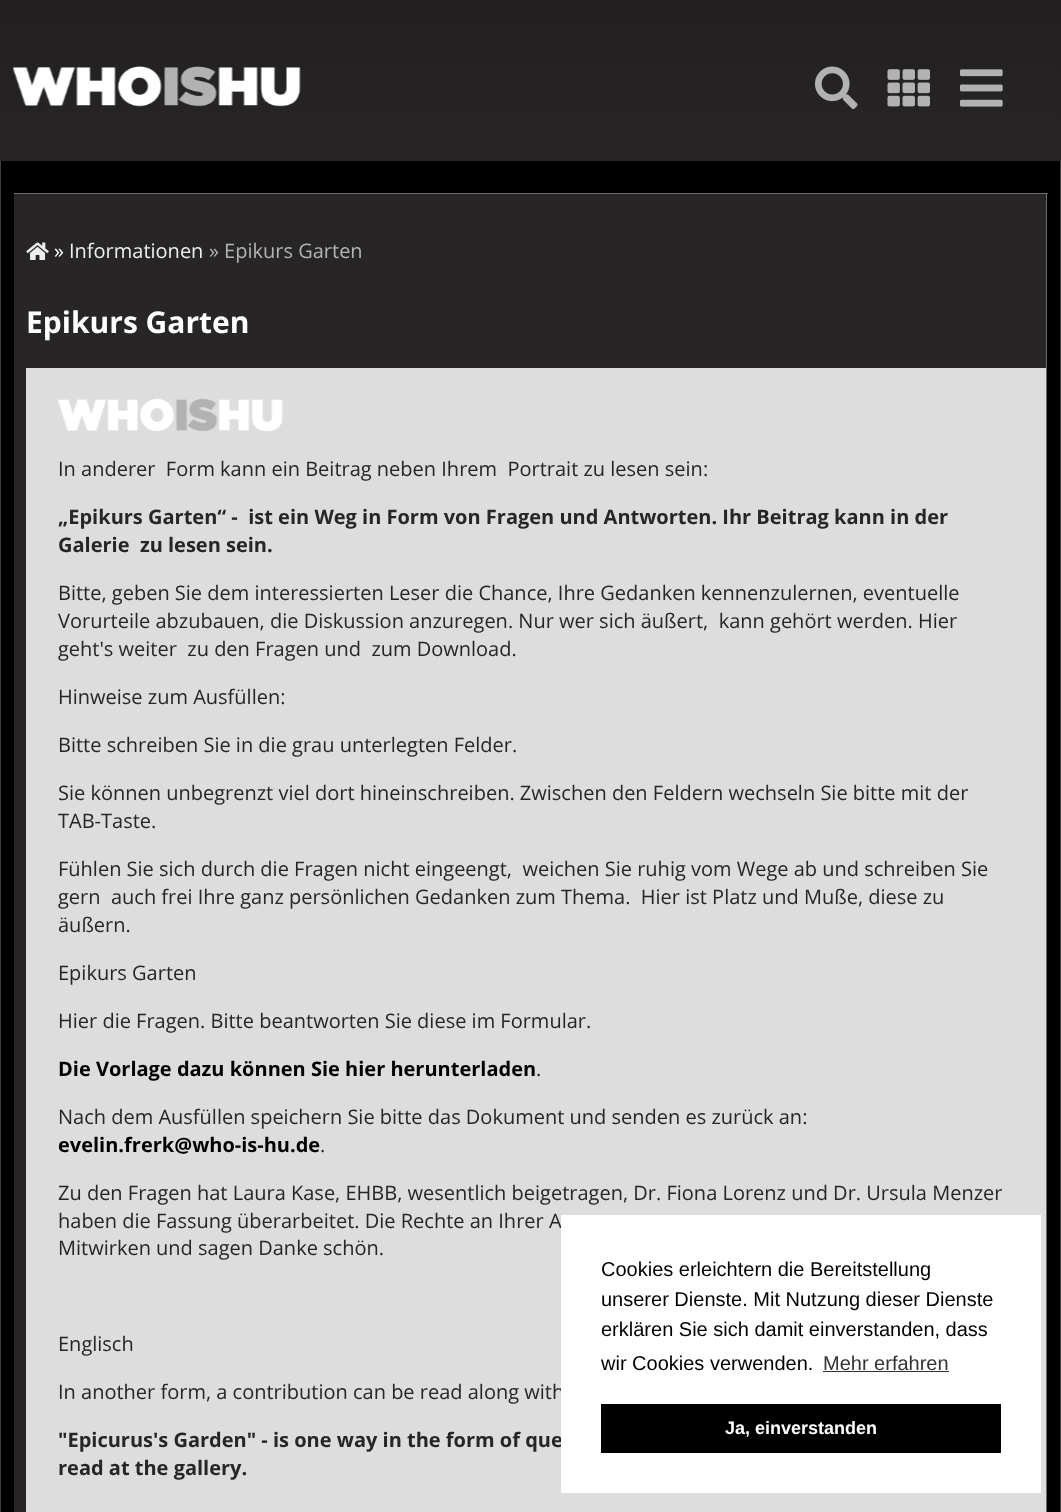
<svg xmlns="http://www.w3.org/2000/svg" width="1061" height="1512">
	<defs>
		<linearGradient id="g1" gradientUnits="userSpaceOnUse" x1="531" y1="0" x2="531" y2="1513"><stop offset="0" stop-color="#211F20" /><stop offset="0.09" stop-color="#262425" /><stop offset="0.09" stop-color="#060606" /><stop offset="0.09" stop-color="#413F40" /><stop offset="0.09" stop-color="#312F30" /><stop offset="0.09" stop-color="#262425" /><stop offset="0.1" stop-color="#262425" /><stop offset="0.34" stop-color="#3B393A" /><stop offset="0.79" stop-color="#6E6C6D" /><stop offset="1" stop-color="#817F80" /></linearGradient>
	</defs>
	<rect width="100%" height="100%" fill="#FFFFFF" />
	<rect x="0" y="0" width="1061" height="161" fill="url(#g1)" />
	<image x="13" y="66" width="288" height="41" href="assets/img1.png" />
	<image x="815" y="66" width="43" height="43" href="assets/img2.png" />
	<image x="887" y="69" width="43" height="38" href="assets/img3.png" />
	<image x="960" y="69" width="43" height="38" href="assets/img4.png" />
	<rect x="1" y="161" width="1059" height="1351" fill="#000000" />
	<rect x="1060" y="161" width="1" height="1351" fill="#413F40" />
	<rect x="0" y="161" width="1" height="1351" fill="#413F40" />
	<rect x="14" y="194" width="1032" height="1318" fill="#272526" />
	<rect x="14" y="193" width="1034" height="1" fill="#6A6A6A" />
	<rect x="1046" y="193" width="1" height="1319" fill="#6A6A6A" />
	<image x="26" y="242" width="23" height="18" href="assets/img5.png" />
	<text x="54" y="258" font-family="Open Sans" font-size="20" fill="#FFFFFF">»</text>
	<text x="69" y="258" font-family="Open Sans" font-size="20" fill="#EEEEEE">Informationen</text>
	<text x="209" y="258" font-family="Open Sans" font-size="20" fill="#B2B4B5">» Epikurs Garten</text>
	<text x="26" y="333" font-family="Open Sans" font-size="30" font-weight="700" fill="#FFFFFF">Epikurs Garten</text>
	<rect x="26" y="368" width="1020" height="1144" fill="#DDDDDD" />
	<image x="57" y="398" width="226" height="34" href="assets/img6.png" />
	<text x="58" y="476" font-family="Open Sans" font-size="20" fill="#272526" xml:space="preserve">In anderer  Form kann ein Beitrag neben Ihrem  Portrait zu lesen sein:</text>
	<g font-family="Open Sans" font-size="20" font-weight="700" fill="#272526">
		<text x="58" y="524" xml:space="preserve">„Epikurs Garten“ -  ist ein Weg in Form von Fragen und Antworten. Ihr Beitrag kann in der</text>
		<text x="58" y="552" xml:space="preserve">Galerie  zu lesen sein.</text>
	</g>
	<g font-family="Open Sans" font-size="20" fill="#272526">
		<text x="58" y="600">Bitte, geben Sie dem interessierten Leser die Chance, Ihre Gedanken kennenzulernen, eventuelle</text>
		<text x="58" y="628" xml:space="preserve">Vorurteile abzubauen, die Diskussion anzuregen. Nur wer sich äußert,  kann gehört werden. Hier</text>
		<text x="58" y="656" xml:space="preserve">geht's weiter  zu den Fragen und  zum Download.</text>
		<text x="58" y="704">Hinweise zum Ausfüllen:</text>
		<text x="58" y="752">Bitte schreiben Sie in die grau unterlegten Felder.</text>
		<text x="58" y="800">Sie können unbegrenzt viel dort hineinschreiben. Zwischen den Feldern wechseln Sie bitte mit der</text>
		<text x="58" y="828">TAB-Taste.</text>
		<text x="58" y="876" xml:space="preserve">Fühlen Sie sich durch die Fragen nicht eingeengt,  weichen Sie ruhig vom Wege ab und schreiben Sie</text>
		<text x="58" y="904" xml:space="preserve">gern  auch frei Ihre ganz persönlichen Gedanken zum Thema.  Hier ist Platz und Muße, diese zu</text>
		<text x="58" y="932">äußern.</text>
		<text x="58" y="980">Epikurs Garten</text>
		<text x="58" y="1028">Hier die Fragen. Bitte beantworten Sie diese im Formular.</text>
	</g>
	<text x="58" y="1076" font-family="Open Sans" font-size="20" font-weight="700" fill="#000000">Die Vorlage dazu können Sie hier herunterladen</text>
	<g font-family="Open Sans" font-size="20" fill="#272526">
		<text x="536" y="1076">.</text>
		<text x="58" y="1124">Nach dem Ausfüllen speichern Sie bitte das Dokument und senden es zurück an:</text>
	</g>
	<text x="58" y="1152" font-family="Open Sans" font-size="20" font-weight="700" fill="#000000">evelin.frerk@who-is-hu.de</text>
	<g font-family="Open Sans" font-size="20" fill="#272526">
		<text x="320" y="1152">.</text>
		<text x="58" y="1200">Zu den Fragen hat Laura Kase, EHBB, wesentlich beigetragen, Dr. Fiona Lorenz und Dr. Ursula Menzer</text>
		<text x="58" y="1228">haben die Fassung überarbeitet. Die Rechte an Ihrer A</text>
		<text x="58" y="1255">Mitwirken und sagen Danke schön.</text>
		<text x="58" y="1351">Englisch</text>
		<text x="58" y="1399">In another form, a contribution can be read along with</text>
	</g>
	<g font-family="Open Sans" font-size="20" font-weight="700" fill="#272526">
		<text x="58" y="1447">"Epicurus's Garden" - is one way in the form of que</text>
		<text x="58" y="1475">read at the gallery.</text>
	</g>
	<rect x="561" y="1215" width="480" height="278" fill="#FFFFFF" />
	<g font-family="Liberation Sans" font-size="20" fill="#000000">
		<text x="601" y="1276">Cookies erleichtern die Bereitstellung</text>
		<text x="601" y="1306">unserer Dienste. Mit Nutzung dieser Dienste</text>
		<text x="601" y="1336">erklären Sie sich damit einverstanden, dass</text>
		<text x="601" y="1370">wir Cookies verwenden.</text>
	</g>
	<text x="823" y="1370" font-family="Liberation Sans" font-size="20" fill="#333333">Mehr erfahren</text>
	<rect x="823" y="1371" width="126" height="1" fill="#333333" />
	<rect x="601" y="1404" width="400" height="49" fill="#000000" />
	<text x="725" y="1434" font-family="Liberation Sans" font-size="18" font-weight="700" fill="#FFFFFF">Ja, einverstanden</text>
</svg>
